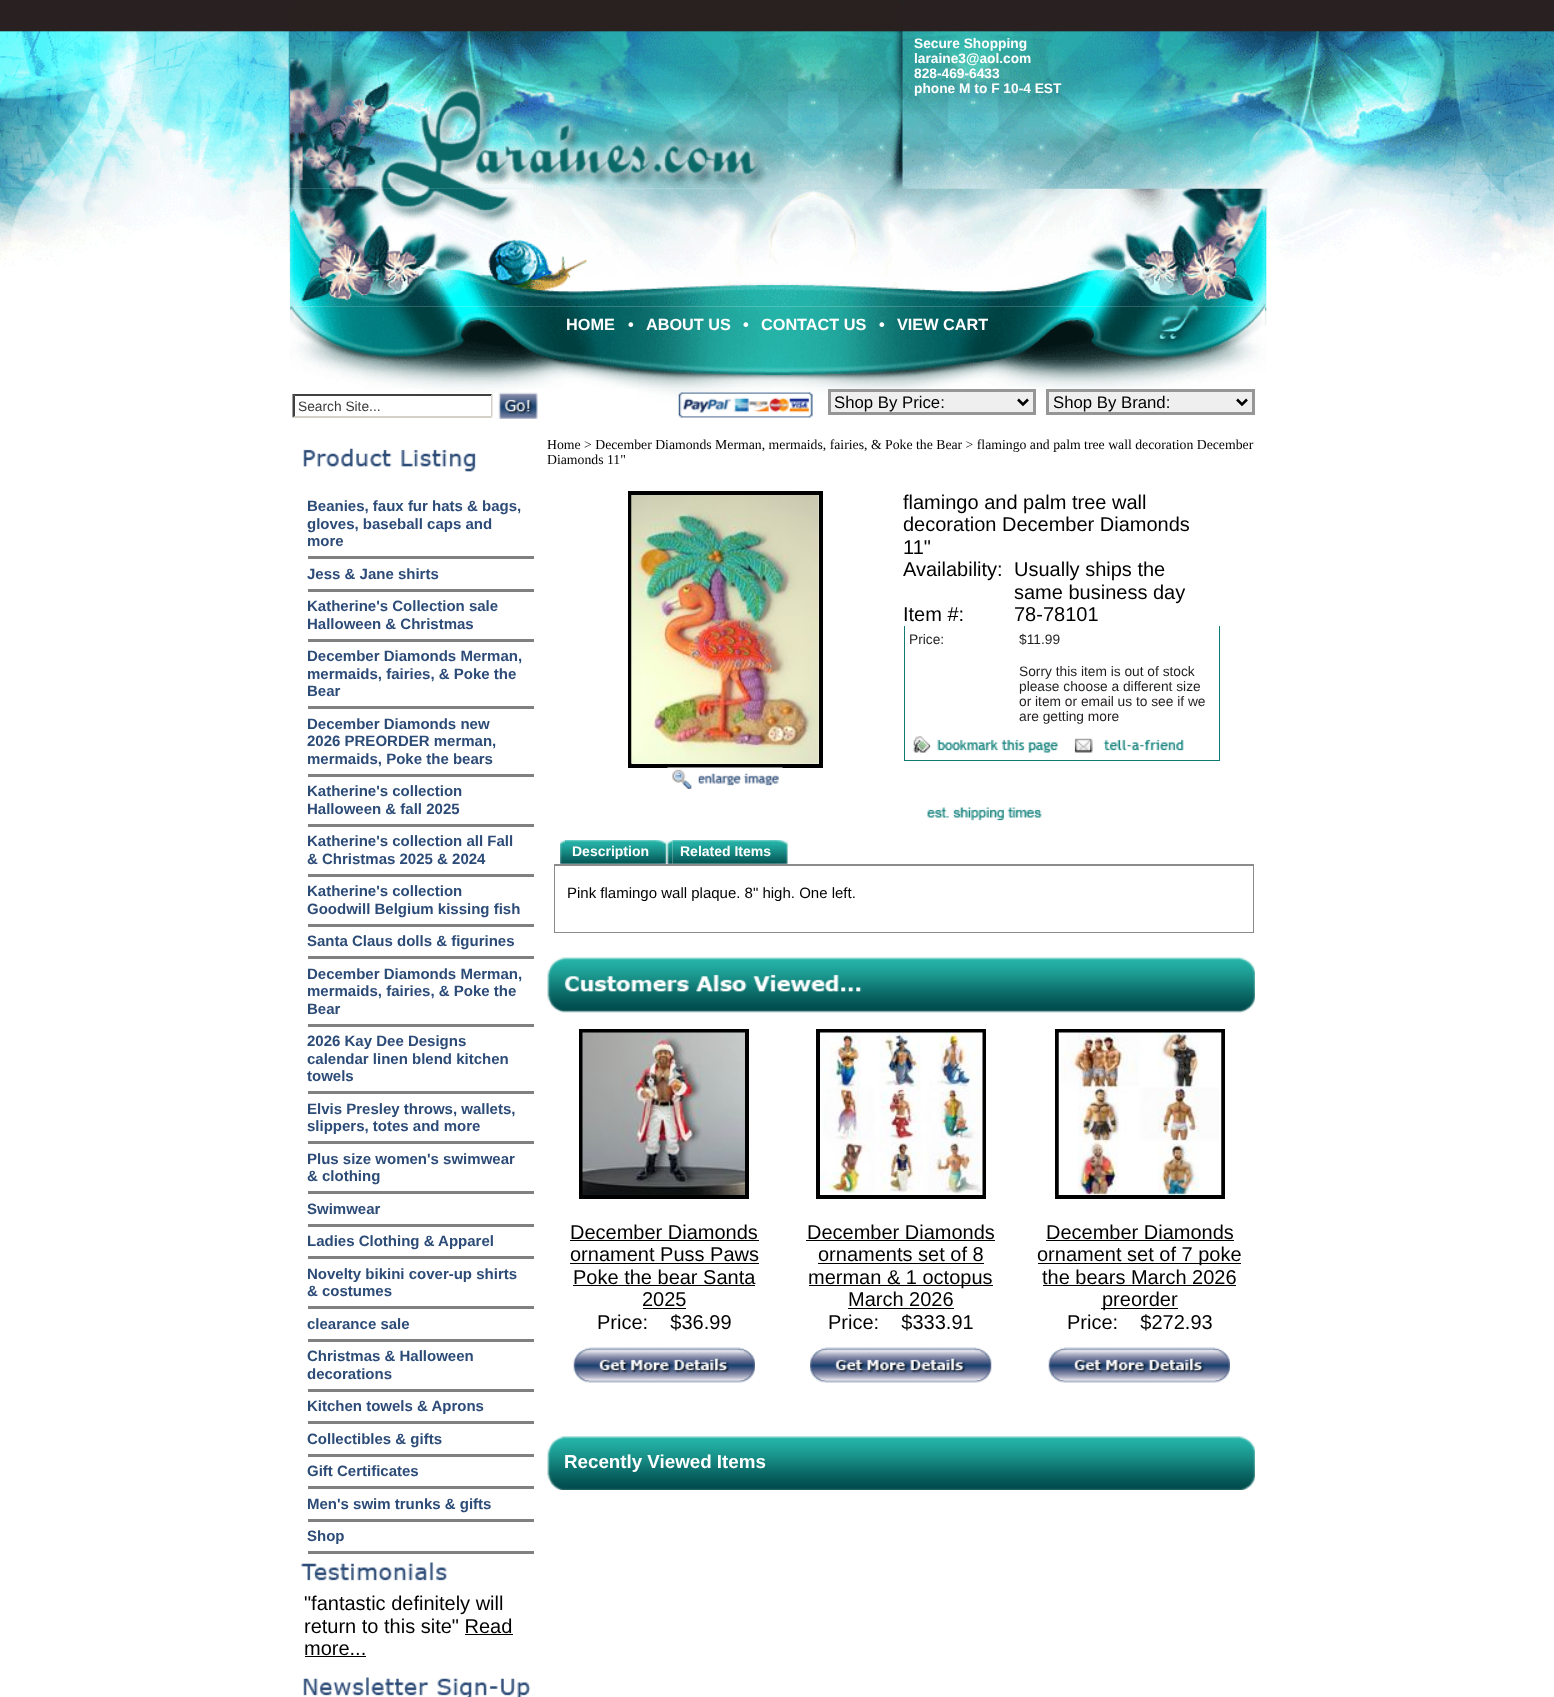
<svg xmlns="http://www.w3.org/2000/svg" width="1554" height="1697">
	<rect width="100%" height="100%" fill="#FFFFFF" />
	<image x="0" y="0" width="1554" height="295" href="assets/img1.png" />
	<image x="288" y="1" width="615" height="188" href="assets/img2.png" />
	<g font-family="Liberation Sans" font-size="13.75" font-weight="700" fill="#FFFFFF">
		<text x="914" y="48">Secure Shopping</text>
		<text x="914" y="63">laraine3@aol.com</text>
		<text x="914" y="78">828-469-6433</text>
		<text x="914" y="93">phone M to F 10-4 EST</text>
	</g>
	<image x="288" y="188" width="980" height="119" href="assets/img3.png" />
	<image x="289" y="306" width="978" height="83" href="assets/img4.png" />
	<g font-family="Liberation Sans" font-size="16.25" font-weight="700" fill="#FFFFFF">
		<text x="566" y="330">HOME</text>
		<text x="628" y="330">•</text>
		<text x="646" y="330">ABOUT US</text>
		<text x="743" y="330">•</text>
		<text x="761" y="330">CONTACT US</text>
		<text x="879" y="330">•</text>
		<text x="897" y="330">VIEW CART</text>
	</g>
	<image x="423" y="389" width="96" height="4" href="assets/img5.png" />
	<path d="M292 394H492L491 396H295Z" fill="#404140" />
	<path d="M492.5 394V417.5L491 416V396Z" fill="#D4D0C8" />
	<path d="M492 418H292L295 416H491Z" fill="#D4D0C8" />
	<path d="M292.5 417.5V394L295 396V416Z" fill="#404140" />
	<text x="298" y="411" font-family="Liberation Sans" font-size="13.75" fill="#3A3A3A">Search Site...</text>
	<image x="498" y="392" width="40" height="27" href="assets/img6.png" />
	<image x="636" y="389" width="496" height="29" href="assets/img7.png" />
	<rect x="829.5" y="390.5" width="205" height="23" fill="#EFEFEF" stroke="#969696" stroke-width="3" />
	<path d="M1018 399.5L1023 404.5L1028 399.5" fill="none" stroke="#000000" stroke-width="2.5" />
	<text x="834" y="408" font-family="Liberation Sans" font-size="16.75" fill="#000000">Shop By Price:</text>
	<rect x="1047.5" y="390.5" width="206" height="23" fill="#EFEFEF" stroke="#969696" stroke-width="3" />
	<path d="M1237 399.5L1242 404.5L1247 399.5" fill="none" stroke="#000000" stroke-width="2.5" />
	<text x="1053" y="408" font-family="Liberation Sans" font-size="16.75" fill="#000000">Shop By Brand:</text>
	<image x="303" y="448" width="173" height="24" href="assets/img8.png" />
	<rect x="308" y="556" width="226" height="3" fill="#808080" />
	<g font-family="Liberation Sans" font-size="15" font-weight="700" fill="#2C4B77">
		<text x="307" y="511">Beanies, faux fur hats &amp; bags,</text>
		<text x="307" y="529">gloves, baseball caps and</text>
		<text x="307" y="546">more</text>
	</g>
	<rect x="308" y="589" width="226" height="3" fill="#808080" />
	<text x="307" y="579" font-family="Liberation Sans" font-size="15" font-weight="700" fill="#2C4B77">Jess &amp; Jane shirts</text>
	<rect x="308" y="639" width="226" height="3" fill="#808080" />
	<g font-family="Liberation Sans" font-size="15" font-weight="700" fill="#2C4B77">
		<text x="307" y="611">Katherine's Collection sale</text>
		<text x="307" y="629">Halloween &amp; Christmas</text>
	</g>
	<rect x="308" y="706" width="226" height="3" fill="#808080" />
	<g font-family="Liberation Sans" font-size="15" font-weight="700" fill="#2C4B77">
		<text x="307" y="661">December Diamonds Merman,</text>
		<text x="307" y="679">mermaids, fairies, &amp; Poke the</text>
		<text x="307" y="696">Bear</text>
	</g>
	<rect x="308" y="774" width="226" height="3" fill="#808080" />
	<g font-family="Liberation Sans" font-size="15" font-weight="700" fill="#2C4B77">
		<text x="307" y="729">December Diamonds new</text>
		<text x="307" y="746">2026 PREORDER merman,</text>
		<text x="307" y="764">mermaids, Poke the bears</text>
	</g>
	<rect x="308" y="824" width="226" height="3" fill="#808080" />
	<g font-family="Liberation Sans" font-size="15" font-weight="700" fill="#2C4B77">
		<text x="307" y="796">Katherine's collection</text>
		<text x="307" y="814">Halloween &amp; fall 2025</text>
	</g>
	<rect x="308" y="874" width="226" height="3" fill="#808080" />
	<g font-family="Liberation Sans" font-size="15" font-weight="700" fill="#2C4B77">
		<text x="307" y="846">Katherine's collection all Fall</text>
		<text x="307" y="864">&amp; Christmas 2025 &amp; 2024</text>
	</g>
	<rect x="308" y="924" width="226" height="3" fill="#808080" />
	<g font-family="Liberation Sans" font-size="15" font-weight="700" fill="#2C4B77">
		<text x="307" y="896">Katherine's collection</text>
		<text x="307" y="914">Goodwill Belgium kissing fish</text>
	</g>
	<rect x="308" y="956" width="226" height="3" fill="#808080" />
	<text x="307" y="946" font-family="Liberation Sans" font-size="15" font-weight="700" fill="#2C4B77">Santa Claus dolls &amp; figurines</text>
	<rect x="308" y="1024" width="226" height="3" fill="#808080" />
	<g font-family="Liberation Sans" font-size="15" font-weight="700" fill="#2C4B77">
		<text x="307" y="979">December Diamonds Merman,</text>
		<text x="307" y="996">mermaids, fairies, &amp; Poke the</text>
		<text x="307" y="1014">Bear</text>
	</g>
	<rect x="308" y="1091" width="226" height="3" fill="#808080" />
	<g font-family="Liberation Sans" font-size="15" font-weight="700" fill="#2C4B77">
		<text x="307" y="1046">2026 Kay Dee Designs</text>
		<text x="307" y="1064">calendar linen blend kitchen</text>
		<text x="307" y="1081">towels</text>
	</g>
	<rect x="308" y="1141" width="226" height="3" fill="#808080" />
	<g font-family="Liberation Sans" font-size="15" font-weight="700" fill="#2C4B77">
		<text x="307" y="1114">Elvis Presley throws, wallets,</text>
		<text x="307" y="1131">slippers, totes and more</text>
	</g>
	<rect x="308" y="1191" width="226" height="3" fill="#808080" />
	<g font-family="Liberation Sans" font-size="15" font-weight="700" fill="#2C4B77">
		<text x="307" y="1164">Plus size women's swimwear</text>
		<text x="307" y="1181">&amp; clothing</text>
	</g>
	<rect x="308" y="1224" width="226" height="3" fill="#808080" />
	<text x="307" y="1214" font-family="Liberation Sans" font-size="15" font-weight="700" fill="#2C4B77">Swimwear</text>
	<rect x="308" y="1256" width="226" height="3" fill="#808080" />
	<text x="307" y="1246" font-family="Liberation Sans" font-size="15" font-weight="700" fill="#2C4B77">Ladies Clothing &amp; Apparel</text>
	<rect x="308" y="1306" width="226" height="3" fill="#808080" />
	<g font-family="Liberation Sans" font-size="15" font-weight="700" fill="#2C4B77">
		<text x="307" y="1279">Novelty bikini cover-up shirts</text>
		<text x="307" y="1296">&amp; costumes</text>
	</g>
	<rect x="308" y="1339" width="226" height="3" fill="#808080" />
	<text x="307" y="1329" font-family="Liberation Sans" font-size="15" font-weight="700" fill="#2C4B77">clearance sale</text>
	<rect x="308" y="1389" width="226" height="3" fill="#808080" />
	<g font-family="Liberation Sans" font-size="15" font-weight="700" fill="#2C4B77">
		<text x="307" y="1361">Christmas &amp; Halloween</text>
		<text x="307" y="1379">decorations</text>
	</g>
	<rect x="308" y="1421" width="226" height="3" fill="#808080" />
	<text x="307" y="1411" font-family="Liberation Sans" font-size="15" font-weight="700" fill="#2C4B77">Kitchen towels &amp; Aprons</text>
	<rect x="308" y="1454" width="226" height="3" fill="#808080" />
	<text x="307" y="1444" font-family="Liberation Sans" font-size="15" font-weight="700" fill="#2C4B77">Collectibles &amp; gifts</text>
	<rect x="308" y="1486" width="226" height="3" fill="#808080" />
	<text x="307" y="1476" font-family="Liberation Sans" font-size="15" font-weight="700" fill="#2C4B77">Gift Certificates</text>
	<rect x="308" y="1519" width="226" height="3" fill="#808080" />
	<text x="307" y="1509" font-family="Liberation Sans" font-size="15" font-weight="700" fill="#2C4B77">Men's swim trunks &amp; gifts</text>
	<rect x="308" y="1551" width="226" height="3" fill="#808080" />
	<text x="307" y="1541" font-family="Liberation Sans" font-size="15" font-weight="700" fill="#2C4B77">Shop</text>
	<image x="301" y="1562" width="146" height="19" href="assets/img9.png" />
	<g font-family="Liberation Sans" font-size="20" fill="#000000">
		<text x="304" y="1610">"fantastic definitely will</text>
		<text x="304" y="1633">return to this site" Read</text>
		<text x="304" y="1655">more...</text>
	</g>
	<rect x="465" y="1634" width="48" height="1" fill="#000000" />
	<rect x="305" y="1656" width="61" height="1" fill="#000000" />
	<image x="303" y="1677" width="228" height="20" href="assets/img10.png" />
	<g font-family="Liberation Serif" font-size="13.75" fill="#000000">
		<text x="547" y="449">Home &gt; December Diamonds Merman, mermaids, fairies, &amp; Poke the Bear &gt; flamingo and palm tree wall decoration December</text>
		<text x="547" y="464">Diamonds 11"</text>
	</g>
	<rect x="630" y="493" width="191" height="273" fill="none" stroke="#000000" stroke-width="4" />
	<image x="631" y="495" width="188" height="269" href="assets/img11.png" />
	<image x="667" y="767" width="116" height="22" href="assets/img12.png" />
	<g font-family="Liberation Sans" font-size="20" fill="#000000">
		<text x="903" y="509">flamingo and palm tree wall</text>
		<text x="903" y="531">decoration December Diamonds</text>
		<text x="903" y="554">11"</text>
		<text x="903" y="576">Availability:</text>
		<text x="1014" y="576">Usually ships the</text>
		<text x="1014" y="599">same business day</text>
		<text x="903" y="621">Item #:</text>
		<text x="1014" y="621">78-78101</text>
	</g>
	<rect x="904" y="626" width="1" height="103" fill="#117974" />
	<text x="909" y="644" font-family="Liberation Sans" font-size="13.75" fill="#221E1F">Price:</text>
	<rect x="1219" y="626" width="1" height="135" fill="#117974" />
	<g font-family="Liberation Sans" font-size="13.75" fill="#221E1F">
		<text x="1019" y="644">$11.99</text>
		<text x="1019" y="676">Sorry this item is out of stock</text>
		<text x="1019" y="691">please choose a different size</text>
		<text x="1019" y="706">or item or email us to see if we</text>
		<text x="1019" y="721">are getting more</text>
	</g>
	<rect x="904" y="760" width="316" height="1" fill="#117974" />
	<rect x="904" y="729" width="1" height="32" fill="#117974" />
	<image x="913" y="736" width="145" height="17" href="assets/img13.png" />
	<image x="1074" y="738" width="110" height="15" href="assets/img14.png" />
	<image x="927" y="807" width="115" height="14" href="assets/img15.png" />
	<rect x="554" y="864" width="700" height="1" fill="#8B8B8B" />
	<image x="560" y="840" width="5" height="24" href="assets/img16.png" />
	<image x="565" y="840" width="103" height="24" href="assets/img17.png" />
	<text x="572" y="856" font-family="Liberation Sans" font-size="14" font-weight="700" fill="#FFFFFF">Description</text>
	<image x="667" y="840" width="6" height="24" href="assets/img18.png" />
	<image x="672" y="840" width="117" height="24" href="assets/img19.png" />
	<text x="680" y="856" font-family="Liberation Sans" font-size="14" font-weight="700" fill="#FFFFFF">Related Items</text>
	<rect x="554.5" y="865.5" width="699" height="67" fill="none" stroke="#8B8B8B" />
	<text x="567" y="898" font-family="Liberation Sans" font-size="15" fill="#000000">Pink flamingo wall plaque. 8" high. One left.</text>
	<image x="547" y="957" width="708" height="56" href="assets/img20.png" />
	<rect x="581" y="1031" width="166" height="166" fill="none" stroke="#000000" stroke-width="4" />
	<image x="582" y="1032" width="163" height="163" href="assets/img21.png" />
	<text x="570" y="1239" font-family="Liberation Sans" font-size="20" fill="#000000">December Diamonds</text>
	<rect x="570" y="1240" width="189" height="1" fill="#000000" />
	<text x="570" y="1261" font-family="Liberation Sans" font-size="20" fill="#000000">ornament Puss Paws</text>
	<rect x="570" y="1263" width="189" height="1" fill="#000000" />
	<text x="573" y="1284" font-family="Liberation Sans" font-size="20" fill="#000000">Poke the bear Santa</text>
	<rect x="573" y="1285" width="182" height="1" fill="#000000" />
	<text x="642" y="1306" font-family="Liberation Sans" font-size="20" fill="#000000">2025</text>
	<rect x="643" y="1308" width="43" height="1" fill="#000000" />
	<text x="597" y="1329" font-family="Liberation Sans" font-size="20" fill="#000000" xml:space="preserve">Price:    $36.99</text>
	<image x="573" y="1347" width="182" height="36" href="assets/img22.png" />
	<rect x="818" y="1031" width="166" height="166" fill="none" stroke="#000000" stroke-width="4" />
	<image x="820" y="1032" width="163" height="163" href="assets/img23.png" />
	<text x="807" y="1239" font-family="Liberation Sans" font-size="20" fill="#000000">December Diamonds</text>
	<rect x="806" y="1240" width="189" height="1" fill="#000000" />
	<text x="818" y="1261" font-family="Liberation Sans" font-size="20" fill="#000000">ornaments set of 8</text>
	<rect x="818" y="1263" width="166" height="1" fill="#000000" />
	<rect x="809" y="1285" width="184" height="1" fill="#000000" />
	<g font-family="Liberation Sans" font-size="20" fill="#000000">
		<text x="808" y="1284">merman &amp; 1 octopus</text>
		<text x="848" y="1306">March 2026</text>
	</g>
	<rect x="848" y="1308" width="106" height="1" fill="#000000" />
	<text x="828" y="1329" font-family="Liberation Sans" font-size="20" fill="#000000" xml:space="preserve">Price:    $333.91</text>
	<image x="810" y="1347" width="182" height="36" href="assets/img24.png" />
	<rect x="1057" y="1031" width="166" height="166" fill="none" stroke="#000000" stroke-width="4" />
	<image x="1058" y="1032" width="164" height="163" href="assets/img25.png" />
	<text x="1046" y="1239" font-family="Liberation Sans" font-size="20" fill="#000000">December Diamonds</text>
	<rect x="1046" y="1240" width="188" height="1" fill="#000000" />
	<rect x="1038" y="1263" width="203" height="1" fill="#000000" />
	<g font-family="Liberation Sans" font-size="20" fill="#000000">
		<text x="1037" y="1261">ornament set of 7 poke</text>
		<text x="1042" y="1284">the bears March 2026</text>
	</g>
	<rect x="1043" y="1285" width="193" height="1" fill="#000000" />
	<rect x="1101" y="1308" width="77" height="1" fill="#000000" />
	<g font-family="Liberation Sans" font-size="20" fill="#000000">
		<text x="1102" y="1306">preorder</text>
		<text x="1067" y="1329" xml:space="preserve">Price:    $272.93</text>
	</g>
	<image x="1048" y="1347" width="182" height="36" href="assets/img26.png" />
	<image x="547" y="1436" width="708" height="54" href="assets/img27.png" />
	<text x="564" y="1468" font-family="Liberation Sans" font-size="18.75" font-weight="700" fill="#FFFFFF">Recently Viewed Items</text>
</svg>
